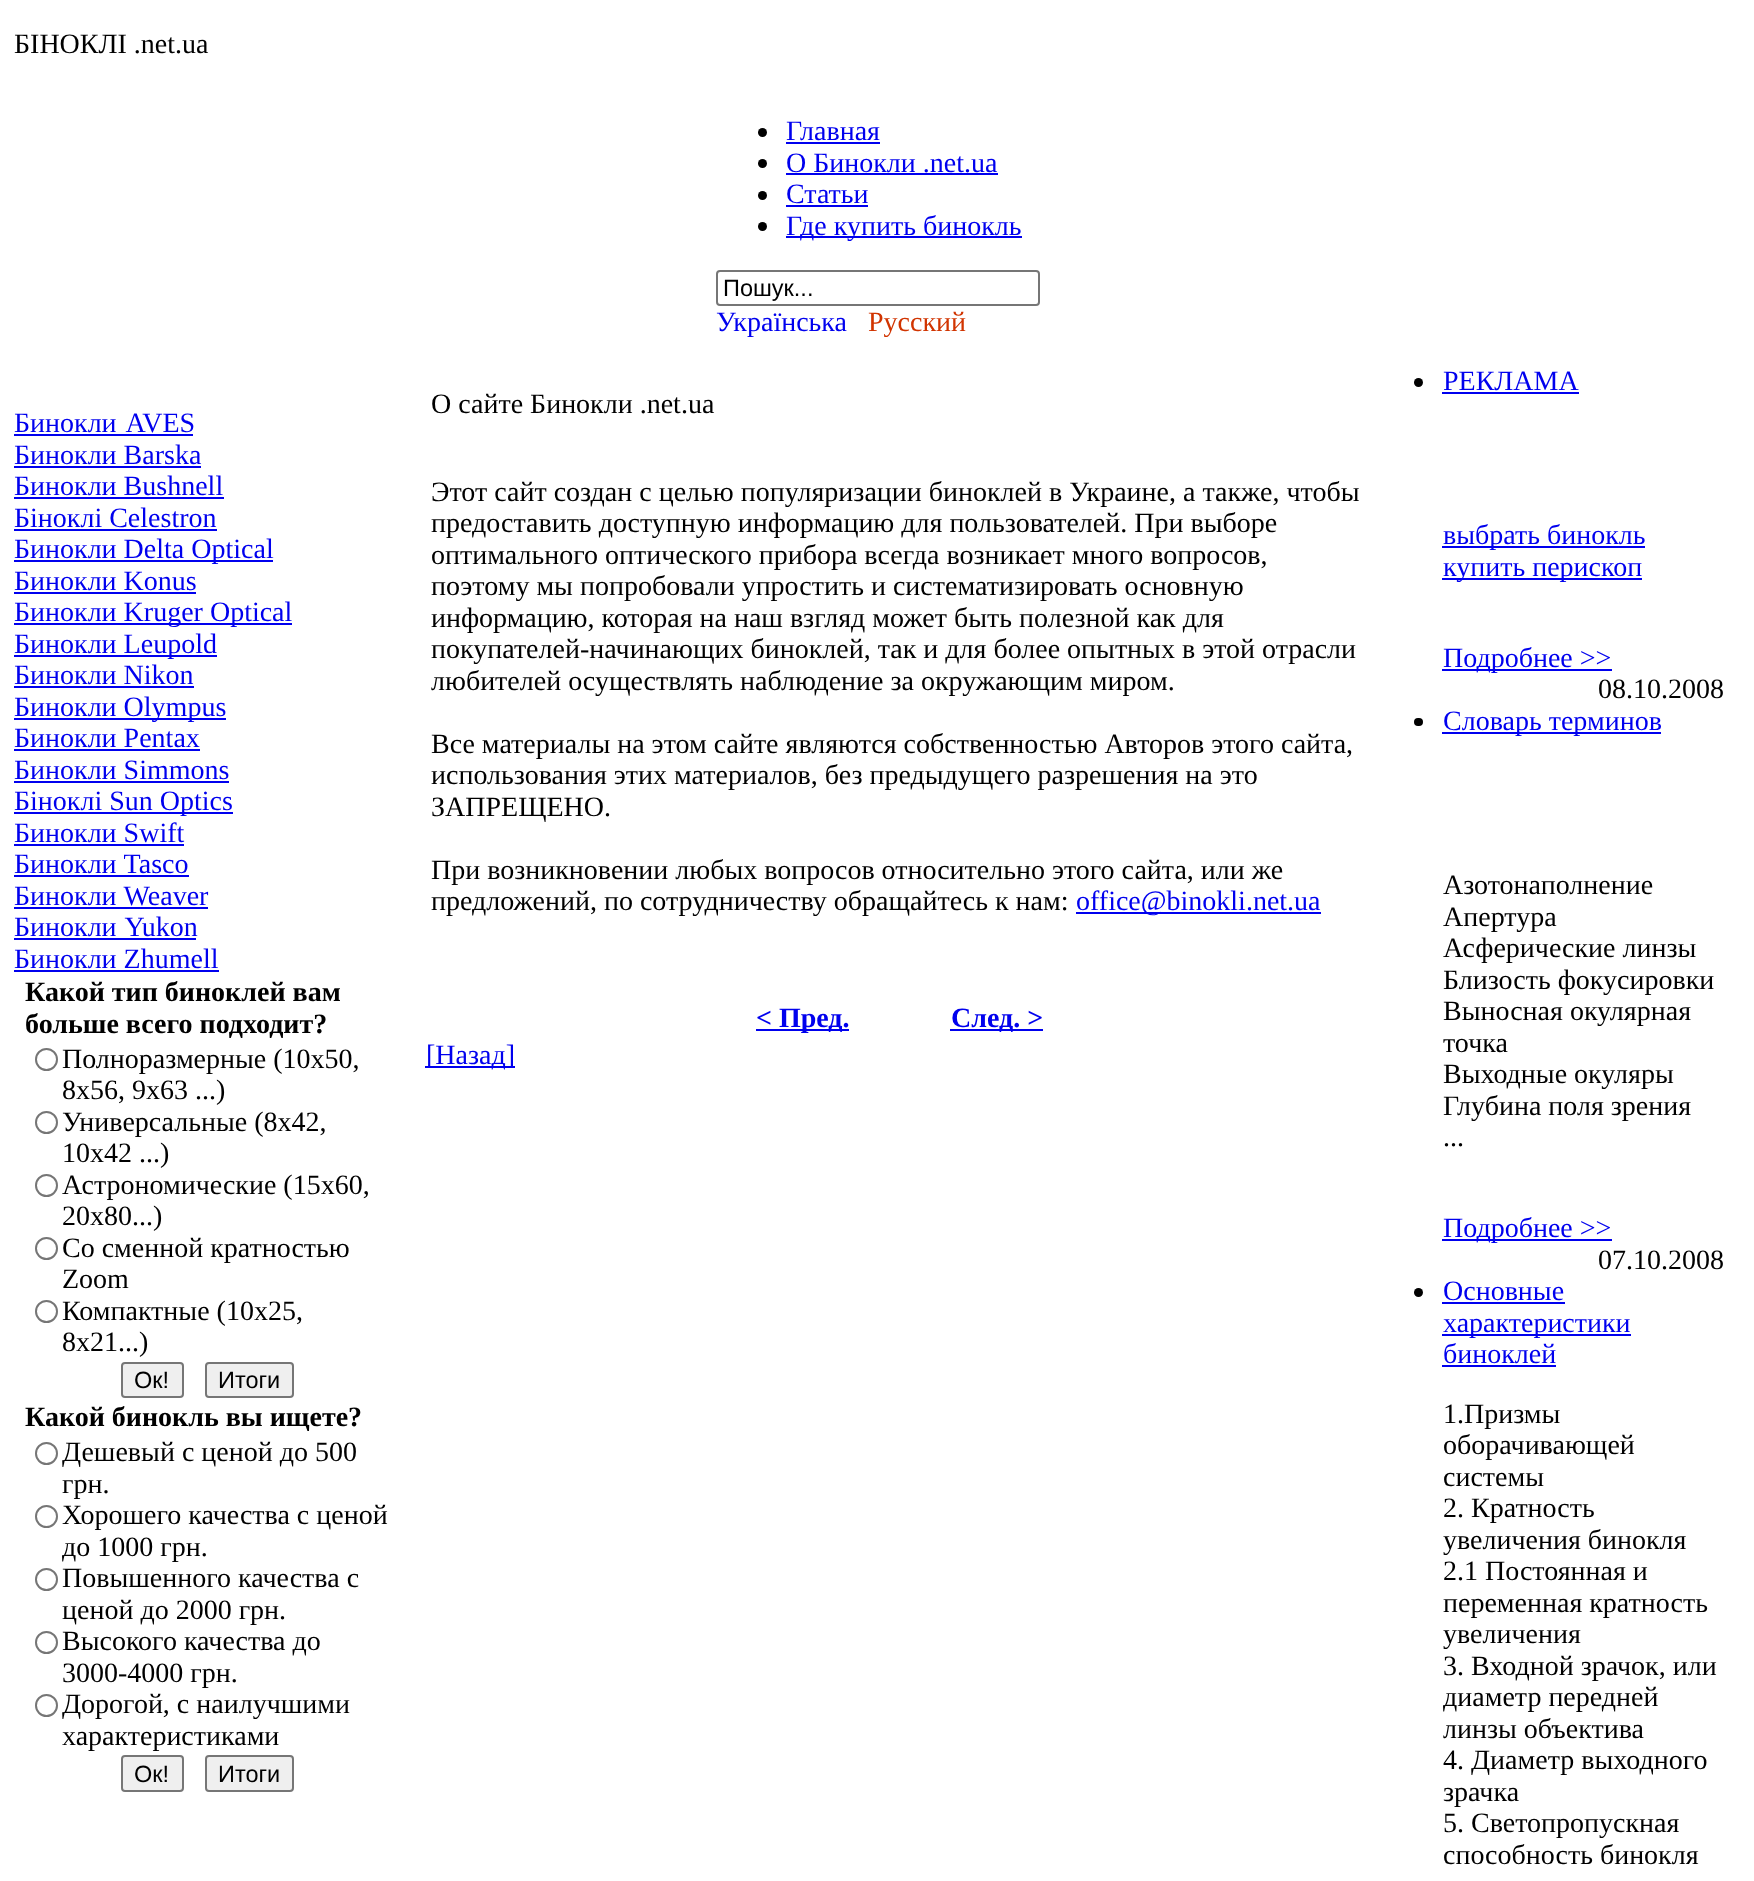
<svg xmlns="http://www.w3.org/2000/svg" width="1754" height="1881">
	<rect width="100%" height="100%" fill="#FFFFFF" />
	<text x="14" y="53" font-family="Liberation Serif" font-size="28" fill="#000000">БІНОКЛІ .net.ua</text>
	<circle cx="762.5" cy="132.5" r="4.5" fill="#000000" />
	<text x="786" y="140" font-family="Liberation Serif" font-size="28" fill="#0000EE">Главная</text>
	<rect x="786" y="142" width="94" height="2" fill="#0000EE" />
	<circle cx="762.5" cy="163.5" r="4.5" fill="#000000" />
	<text x="786" y="172" font-family="Liberation Serif" font-size="28" fill="#0000EE">О Бинокли .net.ua</text>
	<rect x="786" y="173" width="212" height="2" fill="#0000EE" />
	<circle cx="762.5" cy="195.5" r="4.5" fill="#000000" />
	<text x="786" y="203" font-family="Liberation Serif" font-size="28" fill="#0000EE">Статьи</text>
	<rect x="786" y="205" width="82" height="2" fill="#0000EE" />
	<circle cx="762.5" cy="226.5" r="4.5" fill="#000000" />
	<rect x="786" y="236" width="236" height="2" fill="#0000EE" />
	<text x="786" y="235" font-family="Liberation Serif" font-size="28" fill="#0000EE">Где купить бинокль</text>
	<rect x="717" y="271" width="322" height="34" rx="3" fill="none" stroke="#767676" stroke-width="2" />
	<text x="723" y="296" font-family="Liberation Sans" font-size="23.5" fill="#000000">Пошук...</text>
	<text x="716" y="331" font-family="Liberation Serif" font-size="28" fill="#0000EE">Українська</text>
	<text x="868" y="331" font-family="Liberation Serif" font-size="28" fill="#D13400">Русский</text>
	<text x="14" y="432" word-spacing="2" font-family="Liberation Serif" font-size="28" fill="#0000EE">Бинокли AVES</text>
	<rect x="14" y="434" width="179" height="2" fill="#0000EE" />
	<text x="14" y="464" font-family="Liberation Serif" font-size="28" fill="#0000EE">Бинокли Barska</text>
	<rect x="14" y="466" width="187" height="2" fill="#0000EE" />
	<text x="14" y="495" font-family="Liberation Serif" font-size="28" fill="#0000EE">Бинокли Bushnell</text>
	<rect x="14" y="497" width="210" height="2" fill="#0000EE" />
	<text x="14" y="527" font-family="Liberation Serif" font-size="28" fill="#0000EE">Біноклі Celestron</text>
	<rect x="14" y="529" width="203" height="2" fill="#0000EE" />
	<rect x="14" y="560" width="259" height="2" fill="#0000EE" />
	<g font-family="Liberation Serif" font-size="28" fill="#0000EE">
		<text x="14" y="558">Бинокли Delta Optical</text>
		<text x="14" y="590">Бинокли Konus</text>
	</g>
	<rect x="14" y="592" width="182" height="2" fill="#0000EE" />
	<rect x="14" y="623" width="278" height="2" fill="#0000EE" />
	<text x="14" y="621" font-family="Liberation Serif" font-size="28" fill="#0000EE">Бинокли Kruger Optical</text>
	<rect x="14" y="655" width="203" height="2" fill="#0000EE" />
	<g font-family="Liberation Serif" font-size="28" fill="#0000EE">
		<text x="14" y="653">Бинокли Leupold</text>
		<text x="14" y="684">Бинокли Nikon</text>
	</g>
	<rect x="14" y="686" width="180" height="2" fill="#0000EE" />
	<rect x="14" y="718" width="212" height="2" fill="#0000EE" />
	<g font-family="Liberation Serif" font-size="28" fill="#0000EE">
		<text x="14" y="716">Бинокли Olympus</text>
		<text x="14" y="747">Бинокли Pentax</text>
	</g>
	<rect x="14" y="749" width="186" height="2" fill="#0000EE" />
	<text x="14" y="779" font-family="Liberation Serif" font-size="28" fill="#0000EE">Бинокли Simmons</text>
	<rect x="14" y="781" width="215" height="2" fill="#0000EE" />
	<rect x="14" y="812" width="219" height="2" fill="#0000EE" />
	<g font-family="Liberation Serif" font-size="28" fill="#0000EE">
		<text x="14" y="810">Біноклі Sun Optics</text>
		<text x="14" y="842">Бинокли Swift</text>
	</g>
	<rect x="14" y="844" width="170" height="2" fill="#0000EE" />
	<text x="14" y="873" font-family="Liberation Serif" font-size="28" fill="#0000EE">Бинокли Tasco</text>
	<rect x="14" y="875" width="175" height="2" fill="#0000EE" />
	<text x="14" y="905" font-family="Liberation Serif" font-size="28" fill="#0000EE">Бинокли Weaver</text>
	<rect x="14" y="907" width="194" height="2" fill="#0000EE" />
	<text x="14" y="936" word-spacing="1" font-family="Liberation Serif" font-size="28" fill="#0000EE">Бинокли Yukon</text>
	<rect x="14" y="938" width="182" height="2" fill="#0000EE" />
	<text x="14" y="968" font-family="Liberation Serif" font-size="28" fill="#0000EE">Бинокли Zhumell</text>
	<rect x="14" y="970" width="205" height="2" fill="#0000EE" />
	<g font-family="Liberation Serif" font-size="28" font-weight="700" fill="#000000">
		<text x="25" y="1001">Какой тип биноклей вам</text>
		<text x="25" y="1033">больше всего подходит?</text>
	</g>
	<circle cx="46.5" cy="1059.5" r="10.5" fill="none" stroke="#767676" stroke-width="2" />
	<g font-family="Liberation Serif" font-size="28" fill="#000000">
		<text x="62" y="1068">Полноразмерные (10х50,</text>
		<text x="62" y="1099">8х56, 9х63 ...)</text>
	</g>
	<circle cx="46.5" cy="1122.5" r="10.5" fill="none" stroke="#767676" stroke-width="2" />
	<g font-family="Liberation Serif" font-size="28" fill="#000000">
		<text x="62" y="1131">Универсальные (8х42,</text>
		<text x="62" y="1162">10х42 ...)</text>
	</g>
	<circle cx="46.5" cy="1185.5" r="10.5" fill="none" stroke="#767676" stroke-width="2" />
	<g font-family="Liberation Serif" font-size="28" fill="#000000">
		<text x="62" y="1194">Астрономические (15х60,</text>
		<text x="62" y="1225">20х80...)</text>
	</g>
	<circle cx="46.5" cy="1248.5" r="10.5" fill="none" stroke="#767676" stroke-width="2" />
	<g font-family="Liberation Serif" font-size="28" fill="#000000">
		<text x="62" y="1257">Со сменной кратностью</text>
		<text x="62" y="1288">Zoom</text>
	</g>
	<circle cx="46.5" cy="1311.5" r="10.5" fill="none" stroke="#767676" stroke-width="2" />
	<g font-family="Liberation Serif" font-size="28" fill="#000000">
		<text x="62" y="1320">Компактные (10х25,</text>
		<text x="62" y="1351">8х21...)</text>
	</g>
	<rect x="122" y="1363" width="61" height="34" rx="3" fill="#EFEFEF" stroke="#767676" stroke-width="2" />
	<text x="134" y="1388" font-family="Liberation Sans" font-size="23.5" fill="#000000">Ок!</text>
	<rect x="206" y="1363" width="87" height="34" rx="3" fill="#EFEFEF" stroke="#767676" stroke-width="2" />
	<text x="218" y="1388" font-family="Liberation Sans" font-size="23.5" fill="#000000">Итоги</text>
	<text x="25" y="1426" font-family="Liberation Serif" font-size="28" font-weight="700" fill="#000000">Какой бинокль вы ищете?</text>
	<circle cx="46.5" cy="1453.5" r="10.5" fill="none" stroke="#767676" stroke-width="2" />
	<g font-family="Liberation Serif" font-size="28" fill="#000000">
		<text x="62" y="1461">Дешевый с ценой до 500</text>
		<text x="62" y="1493">грн.</text>
	</g>
	<circle cx="46.5" cy="1516.5" r="10.5" fill="none" stroke="#767676" stroke-width="2" />
	<g font-family="Liberation Serif" font-size="28" fill="#000000">
		<text x="62" y="1524">Хорошего качества с ценой</text>
		<text x="62" y="1556">до 1000 грн.</text>
	</g>
	<circle cx="46.5" cy="1579.5" r="10.5" fill="none" stroke="#767676" stroke-width="2" />
	<g font-family="Liberation Serif" font-size="28" fill="#000000">
		<text x="62" y="1587">Повышенного качества с</text>
		<text x="62" y="1619">ценой до 2000 грн.</text>
	</g>
	<circle cx="46.5" cy="1642.5" r="10.5" fill="none" stroke="#767676" stroke-width="2" />
	<g font-family="Liberation Serif" font-size="28" fill="#000000">
		<text x="62" y="1650">Высокого качества до</text>
		<text x="62" y="1682">3000-4000 грн.</text>
	</g>
	<circle cx="46.5" cy="1705.5" r="10.5" fill="none" stroke="#767676" stroke-width="2" />
	<g font-family="Liberation Serif" font-size="28" fill="#000000">
		<text x="62" y="1713">Дорогой, с наилучшими</text>
		<text x="62" y="1745">характеристиками</text>
	</g>
	<rect x="122" y="1756" width="61" height="35" rx="3" fill="#EFEFEF" stroke="#767676" stroke-width="2" />
	<text x="134" y="1782" font-family="Liberation Sans" font-size="23.5" fill="#000000">Ок!</text>
	<rect x="206" y="1756" width="87" height="35" rx="3" fill="#EFEFEF" stroke="#767676" stroke-width="2" />
	<text x="218" y="1782" font-family="Liberation Sans" font-size="23.5" fill="#000000">Итоги</text>
	<g font-family="Liberation Serif" font-size="28" fill="#000000">
		<text x="431" y="413">О сайте Бинокли .net.ua</text>
		<text x="431" y="501">Этот сайт создан с целью популяризации биноклей в Украине, а также, чтобы</text>
		<text x="431" y="532">предоставить доступную информацию для пользователей. При выборе</text>
		<text x="431" y="564">оптимального оптического прибора всегда возникает много вопросов,</text>
		<text x="431" y="595">поэтому мы попробовали упростить и систематизировать основную</text>
		<text x="431" y="627">информацию, которая на наш взгляд может быть полезной как для</text>
		<text x="431" y="658">покупателей-начинающих биноклей, так и для более опытных в этой отрасли</text>
		<text x="431" y="690">любителей осуществлять наблюдение за окружающим миром.</text>
		<text x="431" y="753">Все материалы на этом сайте являются собственностью Авторов этого сайта,</text>
		<text x="431" y="784">использования этих материалов, без предыдущего разрешения на это</text>
		<text x="431" y="816">ЗАПРЕЩЕНО.</text>
		<text x="431" y="879">При возникновении любых вопросов относительно этого сайта, или же</text>
		<text x="431" y="910">предложений, по сотрудничеству обращайтесь к нам:</text>
	</g>
	<rect x="1076" y="912" width="245" height="2" fill="#0000EE" />
	<text x="1076" y="910" font-family="Liberation Serif" font-size="28" fill="#0000EE">office@binokli.net.ua</text>
	<rect x="756" y="1029" width="93" height="2" fill="#0000EE" />
	<text x="756" y="1027" font-family="Liberation Serif" font-size="28" font-weight="700" fill="#0000EE">&lt; Пред.</text>
	<rect x="950" y="1029" width="93" height="2" fill="#0000EE" />
	<text x="951" y="1027" font-family="Liberation Serif" font-size="28" font-weight="700" fill="#0000EE">След. &gt;</text>
	<rect x="425" y="1066" width="90" height="2" fill="#0000EE" />
	<text x="426" y="1064" font-family="Liberation Serif" font-size="28" fill="#0000EE">[Назад]</text>
	<circle cx="1418.5" cy="382.5" r="4.5" fill="#000000" />
	<text x="1443" y="390" font-family="Liberation Serif" font-size="28" fill="#0000EE">РЕКЛАМА</text>
	<rect x="1442" y="392" width="137" height="2" fill="#0000EE" />
	<rect x="1442" y="546" width="203" height="2" fill="#0000EE" />
	<text x="1443" y="544" font-family="Liberation Serif" font-size="28" fill="#0000EE">выбрать бинокль</text>
	<rect x="1442" y="578" width="200" height="2" fill="#0000EE" />
	<text x="1443" y="576" font-family="Liberation Serif" font-size="28" fill="#0000EE">купить перископ</text>
	<rect x="1442" y="669" width="170" height="2" fill="#0000EE" />
	<text x="1443" y="667" font-family="Liberation Serif" font-size="28" fill="#0000EE">Подробнее &gt;&gt;</text>
	<text x="1598" y="698" font-family="Liberation Serif" font-size="28" fill="#000000">08.10.2008</text>
	<rect x="1414" y="718" width="9" height="8" rx="4" fill="#000000" />
	<rect x="1442" y="732" width="219" height="2" fill="#0000EE" />
	<text x="1443" y="730" font-family="Liberation Serif" font-size="28" fill="#0000EE">Словарь терминов</text>
	<g font-family="Liberation Serif" font-size="28" fill="#000000">
		<text x="1443" y="894">Азотонаполнение</text>
		<text x="1443" y="926">Апертура</text>
		<text x="1443" y="957">Асферические линзы</text>
		<text x="1443" y="989">Близость фокусировки</text>
		<text x="1443" y="1020">Выносная окулярная</text>
		<text x="1443" y="1052">точка</text>
		<text x="1443" y="1083">Выходные окуляры</text>
		<text x="1443" y="1115">Глубина поля зрения</text>
		<text x="1443" y="1146">...</text>
	</g>
	<rect x="1442" y="1239" width="170" height="2" fill="#0000EE" />
	<text x="1443" y="1237" font-family="Liberation Serif" font-size="28" fill="#0000EE">Подробнее &gt;&gt;</text>
	<text x="1598" y="1269" font-family="Liberation Serif" font-size="28" fill="#000000">07.10.2008</text>
	<circle cx="1418.5" cy="1292.5" r="4.5" fill="#000000" />
	<text x="1443" y="1300" font-family="Liberation Serif" font-size="28" fill="#0000EE">Основные</text>
	<rect x="1442" y="1302" width="123" height="2" fill="#0000EE" />
	<rect x="1442" y="1334" width="189" height="2" fill="#0000EE" />
	<g font-family="Liberation Serif" font-size="28" fill="#0000EE">
		<text x="1443" y="1332">характеристики</text>
		<text x="1443" y="1363">биноклей</text>
	</g>
	<rect x="1442" y="1365" width="114" height="2" fill="#0000EE" />
	<g font-family="Liberation Serif" font-size="28" fill="#000000">
		<text x="1443" y="1423">1.Призмы</text>
		<text x="1443" y="1454">оборачивающей</text>
		<text x="1443" y="1486">системы</text>
		<text x="1443" y="1517">2. Кратность</text>
		<text x="1443" y="1549">увеличения бинокля</text>
		<text x="1443" y="1580">2.1 Постоянная и</text>
		<text x="1443" y="1612">переменная кратность</text>
		<text x="1443" y="1643">увеличения</text>
		<text x="1443" y="1675">3. Входной зрачок, или</text>
		<text x="1443" y="1706">диаметр передней</text>
		<text x="1443" y="1738">линзы объектива</text>
		<text x="1443" y="1769">4. Диаметр выходного</text>
		<text x="1443" y="1801">зрачка</text>
		<text x="1443" y="1832">5. Светопропускная</text>
		<text x="1443" y="1864">способность бинокля</text>
	</g>
</svg>
